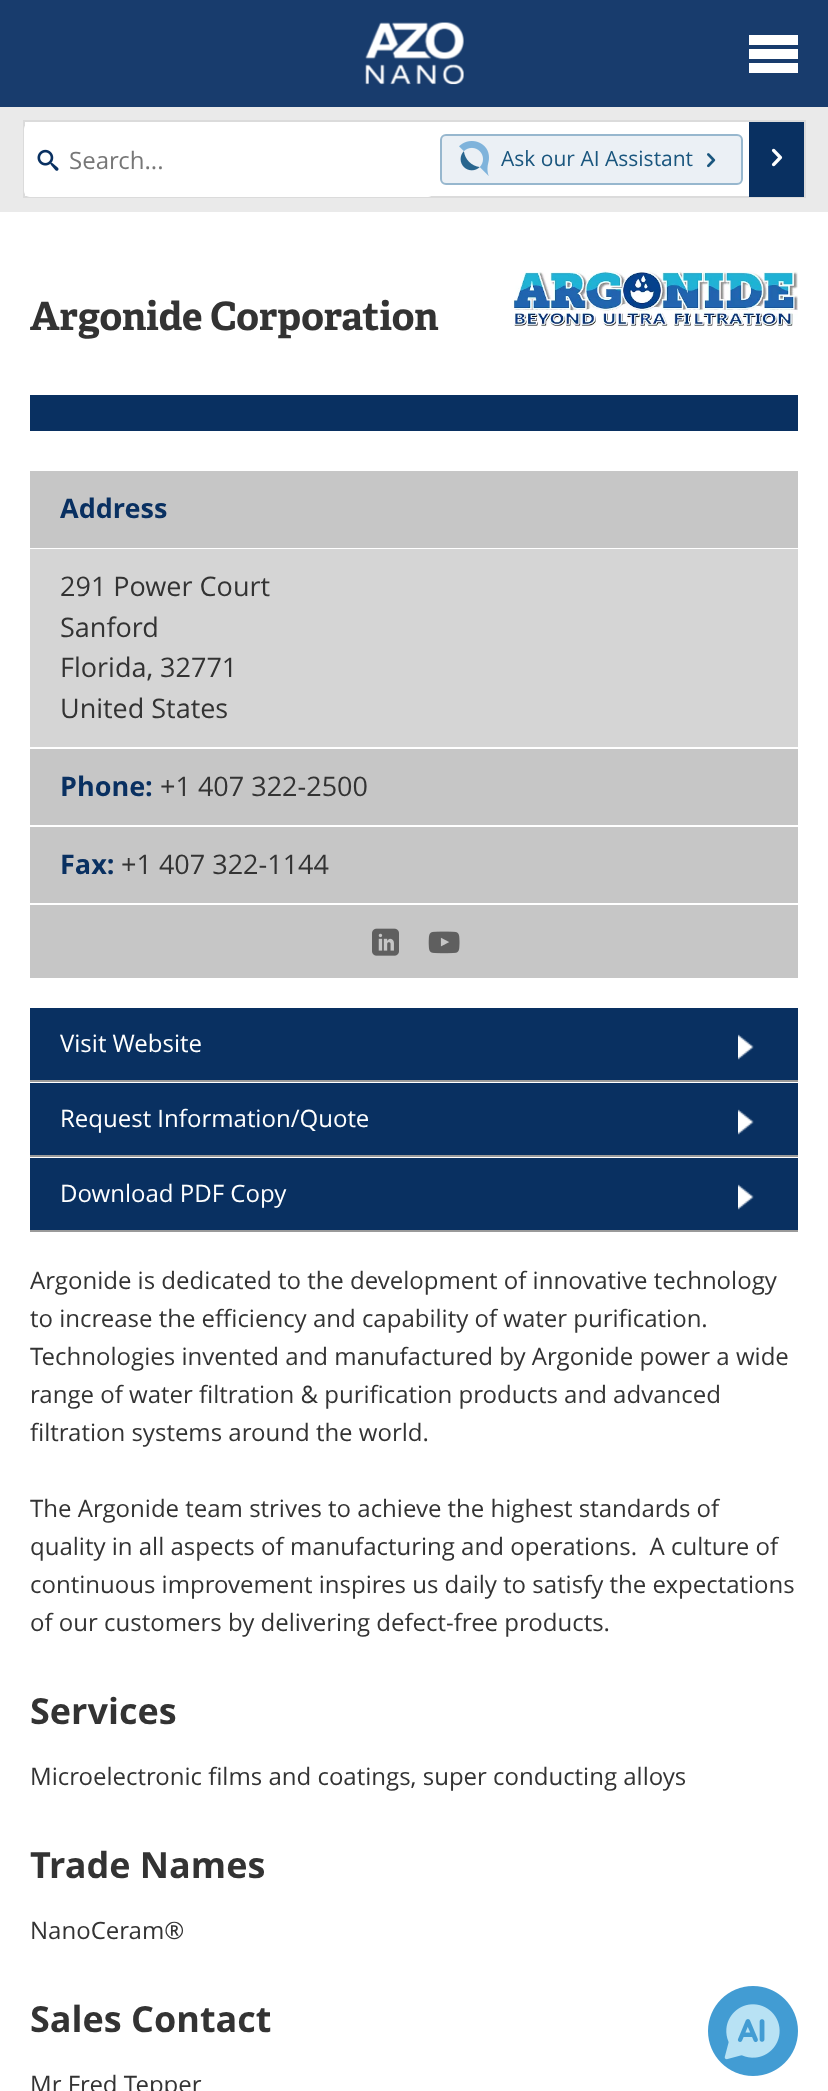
<svg xmlns="http://www.w3.org/2000/svg" width="828" height="2091">
	<rect width="100%" height="100%" fill="#FFFFFF" />
	<rect x="0" y="107" width="828" height="105" fill="#EAEAEA" />
	<rect x="0" y="0" width="828" height="107" fill="#183C6D" />
	<image x="365" y="22" width="99" height="63" href="assets/img1.png" />
	<path d="M749 35H798V45H749ZM749 49H798V59H749ZM749 63H798V73H749Z" fill="#FFFFFF" />
	<rect x="25" y="122" width="724" height="74" fill="#FFFFFF" />
	<rect x="24" y="121" width="781" height="76" fill="none" stroke="#DBDBDB" stroke-width="2" />
	<rect x="24" y="123" width="410" height="74" rx="6" fill="#FFFFFF" />
	<image x="37" y="149" width="22" height="22" href="assets/img2.png" />
	<text x="69" y="169" font-family="Open Sans" font-size="24" fill="#777777">Search...</text>
	<rect x="441" y="135" width="301" height="49" rx="5" fill="#EBF0F5" stroke="#97B7CE" stroke-width="2" />
	<image x="459" y="141" width="30" height="35" href="assets/img3.png" />
	<text x="501" y="166" font-family="Open Sans" font-size="21" fill="#1A567E">Ask our AI Assistant</text>
	<image x="707" y="153" width="9" height="15" href="assets/img4.png" />
	<rect x="749" y="122" width="55" height="75" fill="#093061" />
	<image x="771" y="148" width="12" height="19" href="assets/img5.png" />
	<rect x="30" y="395" width="768" height="36" fill="#093061" />
	<text x="30" y="330" font-family="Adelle" font-size="39" font-weight="700" fill="#333333">Argonide Corporation</text>
	<image x="511" y="270" width="287" height="57" href="assets/img6.png" />
	<rect x="30" y="471" width="768" height="77" fill="#C6C6C6" />
	<text x="60" y="518" font-family="Open Sans" font-size="27" font-weight="700" fill="#093061">Address</text>
	<rect x="30" y="549" width="768" height="198" fill="#D5D5D5" />
	<g font-family="Open Sans" font-size="27" fill="#333333">
		<text x="60" y="596">291 Power Court</text>
		<text x="60" y="637">Sanford</text>
		<text x="60" y="677">Florida, 32771</text>
		<text x="60" y="718">United States</text>
	</g>
	<rect x="30" y="749" width="768" height="76" fill="#C6C6C6" />
	<text x="60" y="796" font-family="Open Sans" font-size="27" font-weight="700" fill="#093061">Phone:</text>
	<text x="160" y="796" font-family="Open Sans" font-size="27" fill="#333333">+1 407 322-2500</text>
	<rect x="30" y="827" width="768" height="76" fill="#C6C6C6" />
	<text x="60" y="874" font-family="Open Sans" font-size="27" font-weight="700" fill="#093061">Fax:</text>
	<text x="121" y="874" font-family="Open Sans" font-size="27" fill="#333333">+1 407 322-1144</text>
	<rect x="30" y="905" width="768" height="73" fill="#C6C6C6" />
	<image x="372" y="928" width="27" height="28" href="assets/img7.png" />
	<image x="428" y="931" width="32" height="23" href="assets/img8.png" />
	<rect x="30" y="1008" width="768" height="72" fill="#093061" />
	<image x="738" y="1034" width="16" height="26" href="assets/img9.png" />
	<rect x="30" y="1080" width="768" height="2" fill="#9A9A9A" />
	<text x="60" y="1052" font-family="Open Sans" font-size="24" fill="#FFFFFF">Visit Website</text>
	<rect x="30" y="1083" width="768" height="72" fill="#093061" />
	<image x="738" y="1109" width="16" height="26" href="assets/img9.png" />
	<rect x="30" y="1155" width="768" height="2" fill="#9A9A9A" />
	<text x="60" y="1127" font-family="Open Sans" font-size="24" fill="#FFFFFF">Request Information/Quote</text>
	<rect x="30" y="1158" width="768" height="72" fill="#093061" />
	<image x="738" y="1184" width="16" height="26" href="assets/img9.png" />
	<rect x="30" y="1230" width="768" height="2" fill="#9A9A9A" />
	<text x="60" y="1202" font-family="Open Sans" font-size="24" fill="#FFFFFF">Download PDF Copy</text>
	<g font-family="Open Sans" font-size="24" fill="#333333">
		<text x="30" y="1289">Argonide is dedicated to the development of innovative technology</text>
		<text x="30" y="1327">to increase the efficiency and capability of water purification.</text>
		<text x="30" y="1365">Technologies invented and manufactured by Argonide power a wide</text>
		<text x="30" y="1403">range of water filtration &amp; purification products and advanced</text>
		<text x="30" y="1441">filtration systems around the world.</text>
		<text x="30" y="1517">The Argonide team strives to achieve the highest standards of</text>
		<text x="30" y="1555" xml:space="preserve">quality in all aspects of manufacturing and operations.  A culture of</text>
		<text x="30" y="1593">continuous improvement inspires us daily to satisfy the expectations</text>
		<text x="30" y="1631">of our customers by delivering defect-free products.</text>
	</g>
	<text x="30" y="1724" font-family="Open Sans" font-size="36" font-weight="700" fill="#333333">Services</text>
	<text x="30" y="1785" font-family="Open Sans" font-size="24" fill="#333333">Microelectronic films and coatings, super conducting alloys</text>
	<text x="30" y="1878" font-family="Open Sans" font-size="36" font-weight="700" fill="#333333">Trade Names</text>
	<text x="30" y="1939" font-family="Open Sans" font-size="24" fill="#333333">NanoCeram®</text>
	<text x="30" y="2032" font-family="Open Sans" font-size="36" font-weight="700" fill="#333333">Sales Contact</text>
	<text x="30" y="2093" font-family="Open Sans" font-size="24" fill="#333333">Mr Fred Tepper</text>
	<image x="708" y="1986" width="90" height="90" href="assets/img10.png" />
</svg>
